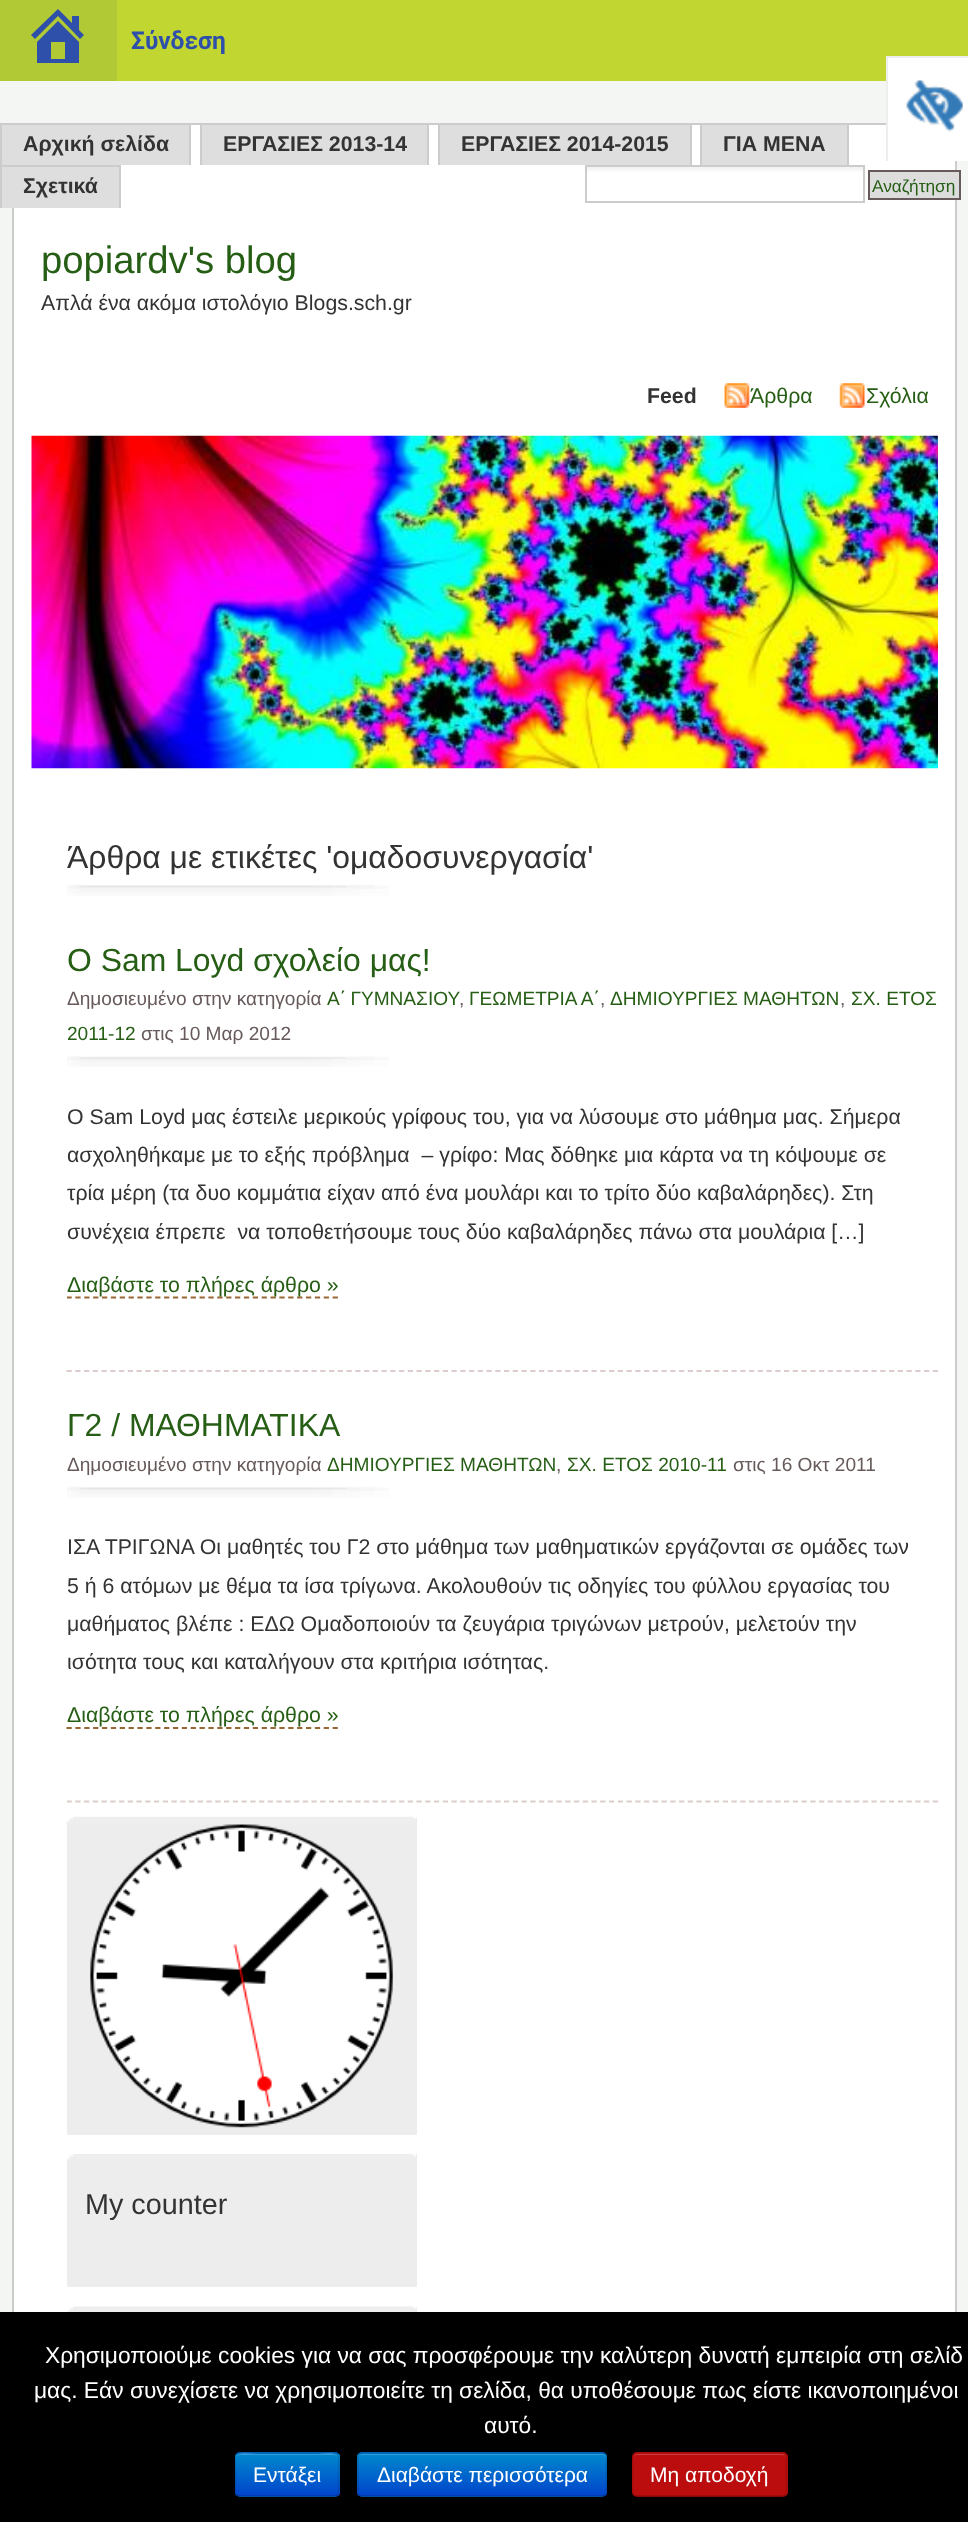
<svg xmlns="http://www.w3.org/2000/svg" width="968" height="2522">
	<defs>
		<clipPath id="clip1"><rect x="67" y="803" width="871" height="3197" /></clipPath>
		<clipPath id="clip2"><rect x="235" y="2452" width="105" height="45" rx="5" /></clipPath>
		<linearGradient id="g1" gradientUnits="userSpaceOnUse" x1="287" y1="2454" x2="287" y2="2496"><stop offset="0" stop-color="#0088CC" /><stop offset="1" stop-color="#0044CC" /></linearGradient>
		<clipPath id="clip3"><rect x="357" y="2452" width="250" height="45" rx="5" /></clipPath>
		<linearGradient id="g2" gradientUnits="userSpaceOnUse" x1="482" y1="2454" x2="482" y2="2496"><stop offset="0" stop-color="#0088CC" /><stop offset="1" stop-color="#0044CC" /></linearGradient>
	</defs>
	<rect width="100%" height="100%" fill="#F3F6F3" />
	<rect x="117" y="0" width="851" height="81" fill="#C1D630" />
	<rect x="0" y="0" width="117" height="81" fill="#B1C935" />
	<path d="M79 30L84 35L80 39L58 16L35 39L31 35L58 9L72 23V16H79ZM58 21L79 42V63H37V42ZM65 59V42H51V59Z" fill="#2E50AA" />
	<text x="131" y="49" font-family="Roboto" font-size="24.5" font-weight="700" fill="#2E50AA">Σύνδεση</text>
	<rect x="886" y="56" width="82" height="2" fill="#EEEEEE" />
	<rect x="14" y="125" width="941" height="2187" fill="#FFFFFF" />
	<rect x="13" y="124" width="943" height="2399" fill="none" stroke="#CCCCCC" stroke-width="2" />
	<rect x="886" y="56" width="2" height="105" fill="#EEEEEE" />
	<rect x="888" y="58" width="80" height="103" fill="#FFFFFF" />
	<image x="906" y="80" width="57" height="52" href="assets/img1.png" />
	<rect x="2" y="125" width="187" height="40" fill="#DEDEDE" />
	<rect x="0" y="123" width="12" height="2" fill="#CCCCCC" />
	<rect x="189" y="123" width="2" height="42" fill="#CCCCCC" />
	<rect x="0" y="123" width="2" height="42" fill="#CCCCCC" />
	<text x="23" y="151" font-family="Liberation Sans" font-size="21.3" font-weight="700" fill="#333333">Αρχική σελίδα</text>
	<rect x="202" y="125" width="225" height="40" fill="#DEDEDE" />
	<rect x="427" y="123" width="2" height="42" fill="#CCCCCC" />
	<rect x="200" y="123" width="2" height="42" fill="#CCCCCC" />
	<text x="223" y="151" font-family="Liberation Sans" font-size="21.3" font-weight="700" fill="#333333">ΕΡΓΑΣΙΕΣ 2013-14</text>
	<rect x="440" y="125" width="250" height="40" fill="#DEDEDE" />
	<rect x="690" y="123" width="2" height="42" fill="#CCCCCC" />
	<rect x="438" y="123" width="2" height="42" fill="#CCCCCC" />
	<text x="461" y="151" font-family="Liberation Sans" font-size="21.3" font-weight="700" fill="#333333">ΕΡΓΑΣΙΕΣ 2014-2015</text>
	<rect x="702" y="125" width="145" height="40" fill="#DEDEDE" />
	<rect x="847" y="123" width="2" height="42" fill="#CCCCCC" />
	<rect x="700" y="123" width="2" height="42" fill="#CCCCCC" />
	<text x="723" y="151" font-family="Liberation Sans" font-size="21.3" font-weight="700" fill="#333333">ΓΙΑ ΜΕΝΑ</text>
	<rect x="2" y="167" width="117" height="41" fill="#DEDEDE" />
	<rect x="0" y="165" width="121" height="2" fill="#CCCCCC" />
	<rect x="119" y="165" width="2" height="43" fill="#CCCCCC" />
	<rect x="0" y="165" width="2" height="43" fill="#CCCCCC" />
	<text x="23" y="193" font-family="Liberation Sans" font-size="21.3" font-weight="700" fill="#333333">Σχετικά</text>
	<image x="584" y="166" width="279" height="6" href="assets/img2.png" />
	<rect x="586" y="166" width="278" height="36" fill="none" stroke="#CCCCCC" stroke-width="2" />
	<rect x="869" y="171" width="91" height="28" fill="#DDDDDD" stroke="#675A5A" stroke-width="2" />
	<text x="872" y="192" font-family="Liberation Sans" font-size="17.25" fill="#265E15">Αναζήτηση</text>
	<text x="41" y="273" font-family="Liberation Sans" font-size="38.25" fill="#265E15">popiardv's blog</text>
	<text x="41" y="310" font-family="Liberation Sans" font-size="21.3" fill="#333333">Απλά ένα ακόμα ιστολόγιο Blogs.sch.gr</text>
	<text x="647" y="403" font-family="Liberation Sans" font-size="21.3" font-weight="700" fill="#333333">Feed</text>
	<image x="724" y="383" width="26" height="25" href="assets/img3.png" />
	<text x="750" y="403" font-family="Liberation Sans" font-size="21.3" fill="#265E15">Άρθρα</text>
	<image x="839" y="383" width="26" height="25" href="assets/img4.png" />
	<text x="866" y="403" font-family="Liberation Sans" font-size="21.3" fill="#265E15">Σχόλια</text>
	<image x="31" y="435" width="907" height="334" href="assets/img5.png" />
	<image x="67" y="884" width="322" height="12" href="assets/img6.png" />
	<text x="67" y="868" font-family="Liberation Sans" font-size="31.9" fill="#333333">Άρθρα με ετικέτες 'ομαδοσυνεργασία'</text>
	<path d="M66.5 1371H938" fill="none" stroke="#DDCCCC" stroke-width="1.8" stroke-dasharray="5.25 3.5" />
	<text x="67" y="971" font-family="Liberation Sans" font-size="31.9" fill="#265E15">O Sam Loyd σχολείο μας!</text>
	<image x="67" y="1056" width="322" height="11" href="assets/img7.png" />
	<text x="67" y="1005" font-family="Liberation Sans" font-size="19.1" fill="#675A5A">Δημοσιευμένο στην κατηγορία</text>
	<text x="327" y="1005" word-spacing="-1" font-family="Liberation Sans" font-size="19.1" fill="#265E15">Α΄ ΓΥΜΝΑΣΙΟΥ</text>
	<text x="459" y="1005" font-family="Liberation Sans" font-size="19.1" fill="#675A5A">,</text>
	<text x="469" y="1005" font-family="Liberation Sans" font-size="19.1" fill="#265E15">ΓΕΩΜΕΤΡΙΑ Α΄</text>
	<text x="600" y="1005" font-family="Liberation Sans" font-size="19.1" fill="#675A5A">,</text>
	<text x="610" y="1005" font-family="Liberation Sans" font-size="19.1" fill="#265E15">ΔΗΜΙΟΥΡΓΙΕΣ ΜΑΘΗΤΩΝ</text>
	<text x="840" y="1005" font-family="Liberation Sans" font-size="19.1" fill="#675A5A">,</text>
	<g font-family="Liberation Sans" font-size="19.1" fill="#265E15">
		<text x="851" y="1005">ΣΧ. ΕΤΟΣ</text>
		<text x="67" y="1040">2011-12</text>
	</g>
	<text x="141" y="1040" font-family="Liberation Sans" font-size="19.1" fill="#675A5A">στις 10 Μαρ 2012</text>
	<g font-family="Liberation Sans" font-size="21.3" fill="#333333">
		<text x="67" y="1124">Ο Sam Loyd μας έστειλε μερικούς γρίφους του, για να λύσουμε στο μάθημα μας. Σήμερα</text>
		<text x="67" y="1162" xml:space="preserve">ασχοληθήκαμε με το εξής πρόβλημα  – γρίφο: Μας δόθηκε μια κάρτα να τη κόψουμε σε</text>
		<text x="67" y="1200">τρία μέρη (τα δυο κομμάτια είχαν από ένα μουλάρι και το τρίτο δύο καβαλάρηδες). Στη</text>
		<text x="67" y="1239" xml:space="preserve">συνέχεια έπρεπε  να τοποθετήσουμε τους δύο καβαλάρηδες πάνω στα μουλάρια […]</text>
	</g>
	<g clip-path="url(#clip1)">
		<path d="M66.5 1297.5H338" fill="none" stroke="#996633" stroke-width="1.8" stroke-dasharray="5.25 3.62" />
	</g>
	<text x="67" y="1292" font-family="Liberation Sans" font-size="21.3" fill="#265E15">Διαβάστε το πλήρες άρθρο »</text>
	<g clip-path="url(#clip1)">
		<path d="M66.5 1801.5H938" fill="none" stroke="#DDCCCC" stroke-width="1.8" stroke-dasharray="5.25 3.5" />
	</g>
	<text x="67" y="1436" font-family="Liberation Sans" font-size="31.9" fill="#265E15">Γ2 / ΜΑΘΗΜΑΤΙΚΑ</text>
	<image x="67" y="1486" width="322" height="12" href="assets/img6.png" />
	<text x="67" y="1471" font-family="Liberation Sans" font-size="19.1" fill="#675A5A">Δημοσιευμένο στην κατηγορία</text>
	<text x="327" y="1471" font-family="Liberation Sans" font-size="19.1" fill="#265E15">ΔΗΜΙΟΥΡΓΙΕΣ ΜΑΘΗΤΩΝ</text>
	<text x="556" y="1471" font-family="Liberation Sans" font-size="19.1" fill="#675A5A">,</text>
	<text x="567" y="1471" font-family="Liberation Sans" font-size="19.1" fill="#265E15">ΣΧ. ΕΤΟΣ 2010-11</text>
	<text x="733" y="1471" font-family="Liberation Sans" font-size="19.1" fill="#675A5A">στις 16 Οκτ 2011</text>
	<g font-family="Liberation Sans" font-size="21.3" fill="#333333">
		<text x="67" y="1554">ΙΣΑ ΤΡΙΓΩΝΑ Οι μαθητές του Γ2 στο μάθημα των μαθηματικών εργάζονται σε ομάδες των</text>
		<text x="67" y="1593">5 ή 6 ατόμων με θέμα τα ίσα τρίγωνα. Ακολουθούν τις οδηγίες του φύλλου εργασίας του</text>
		<text x="67" y="1631">μαθήματος βλέπε : ΕΔΩ Ομαδοποιούν τα ζευγάρια τριγώνων μετρούν, μελετούν την</text>
		<text x="67" y="1669">ισότητα τους και καταλήγουν στα κριτήρια ισότητας.</text>
	</g>
	<text x="67" y="1722" font-family="Liberation Sans" font-size="21.3" fill="#265E15">Διαβάστε το πλήρες άρθρο »</text>
	<path d="M66.5 1728H338" fill="none" stroke="#996633" stroke-width="1.8" stroke-dasharray="5.25 3.62" />
	<rect x="67" y="1817" width="350" height="318" fill="#EDEDED" />
	<image x="66" y="1816" width="351" height="9" href="assets/img8.png" />
	<image x="90" y="1824" width="303" height="304" href="assets/img9.png" />
	<rect x="67" y="2154" width="350" height="133" fill="#EDEDED" />
	<image x="67" y="2154" width="349" height="6" href="assets/img10.png" />
	<text x="85" y="2214" font-family="Liberation Sans" font-size="28.75" fill="#333333">My counter</text>
	<rect x="416" y="2307" width="1" height="5" fill="#EDEDED" />
	<image x="67" y="2306" width="350" height="6" href="assets/img11.png" />
	<rect x="0" y="2312" width="968" height="210" fill="#000000" />
	<g font-family="Liberation Sans" font-size="22.75" fill="#FFFFFF">
		<text x="45" y="2363">Χρησιμοποιούμε cookies για να σας προσφέρουμε την καλύτερη δυνατή εμπειρία στη σελίδ</text>
		<text x="34" y="2398">μας. Εάν συνεχίσετε να χρησιμοποιείτε τη σελίδα, θα υποθέσουμε πως είστε ικανοποιημένοι</text>
		<text x="484" y="2433">αυτό.</text>
	</g>
	<rect x="235" y="2452" width="105" height="45" rx="5" fill="#006DCC" />
	<g clip-path="url(#clip2)">
		<rect x="235" y="2454" width="105" height="42" fill="url(#g1)" />
	</g>
	<path d="M240 2455H334C336 2455 338 2457 338 2459C338 2450 322 2454 318 2454H256C252 2454 236 2450 236 2459C236 2457 238 2455 240 2455Z" fill="#FFFFFF" fill-opacity="0.2" />
	<path d="M337.5 2495L334.5 2496.5H239.5L236.5 2495" fill="none" stroke="#000000" stroke-opacity="0.25" stroke-width="1.8" />
	<path d="M236.5 2495C234.5 2493 235.5 2488.5 235.5 2486V2474.5C235.5 2450 231 2452.5 255.5 2452.5H318.5C343 2452.5 338.5 2450 338.5 2474.5V2486C338.5 2488.5 339.5 2493 337.5 2495" fill="none" stroke="#000000" stroke-opacity="0.1" stroke-width="1.8" />
	<text x="253" y="2482" font-family="Liberation Sans" font-size="21" fill="#FFFFFF">Εντάξει</text>
	<rect x="357" y="2452" width="250" height="45" rx="5" fill="#006DCC" />
	<g clip-path="url(#clip3)">
		<rect x="357" y="2454" width="250" height="42" fill="url(#g2)" />
	</g>
	<path d="M362 2455H602C604 2455 606 2457 606 2459V2458C606 2456 604 2454 602 2454H363C361 2454 359 2456 359 2458V2459C359 2457 360 2455 362 2455Z" fill="#FFFFFF" fill-opacity="0.2" />
	<path d="M605 2495C604.5 2496 603 2496.5 602 2496.5H362C361 2496.5 360 2496 359 2495" fill="none" stroke="#000000" stroke-opacity="0.25" stroke-width="1.8" />
	<path d="M359 2495C358.5 2494.5 358 2493 358 2492V2457C358 2456 358.5 2454.5 359 2454C360 2453 361 2452.5 362 2452.5H602C603 2452.5 604.5 2453 605 2454C606 2454.5 606.5 2456 606.5 2457V2492C606.5 2493 606 2494.5 605 2495" fill="none" stroke="#000000" stroke-opacity="0.1" stroke-width="1.8" />
	<text x="377" y="2482" font-family="Liberation Sans" font-size="21" fill="#FFFFFF">Διαβάστε περισσότερα</text>
	<rect x="632" y="2452" width="156" height="45" rx="5" fill="#BB0D0D" />
	<path d="M637 2455H782C784 2455 786 2457 786 2459C786 2457 785 2455 783 2454H638C635 2454 634 2456 634 2459C634 2457 635 2455 637 2455Z" fill="#C93D3D" />
	<path d="M785.5 2495C784.5 2496 783.5 2496.5 782 2496.5H637C636 2496.5 634.5 2496 634 2495" fill="none" stroke="#000000" stroke-opacity="0.25" stroke-width="1.8" />
	<path d="M634 2495C631 2492.5 632.5 2483.5 632.5 2480.5V2463C632.5 2459.5 631.5 2452.5 637 2452.5H782C787.5 2452.5 786.5 2459.5 786.5 2463V2480.5C786.5 2483.5 788 2492.5 785.5 2495" fill="none" stroke="#000000" stroke-opacity="0.1" stroke-width="1.8" />
	<text x="650" y="2482" font-family="Liberation Sans" font-size="21" fill="#FFFFFF">Μη αποδοχή</text>
</svg>
